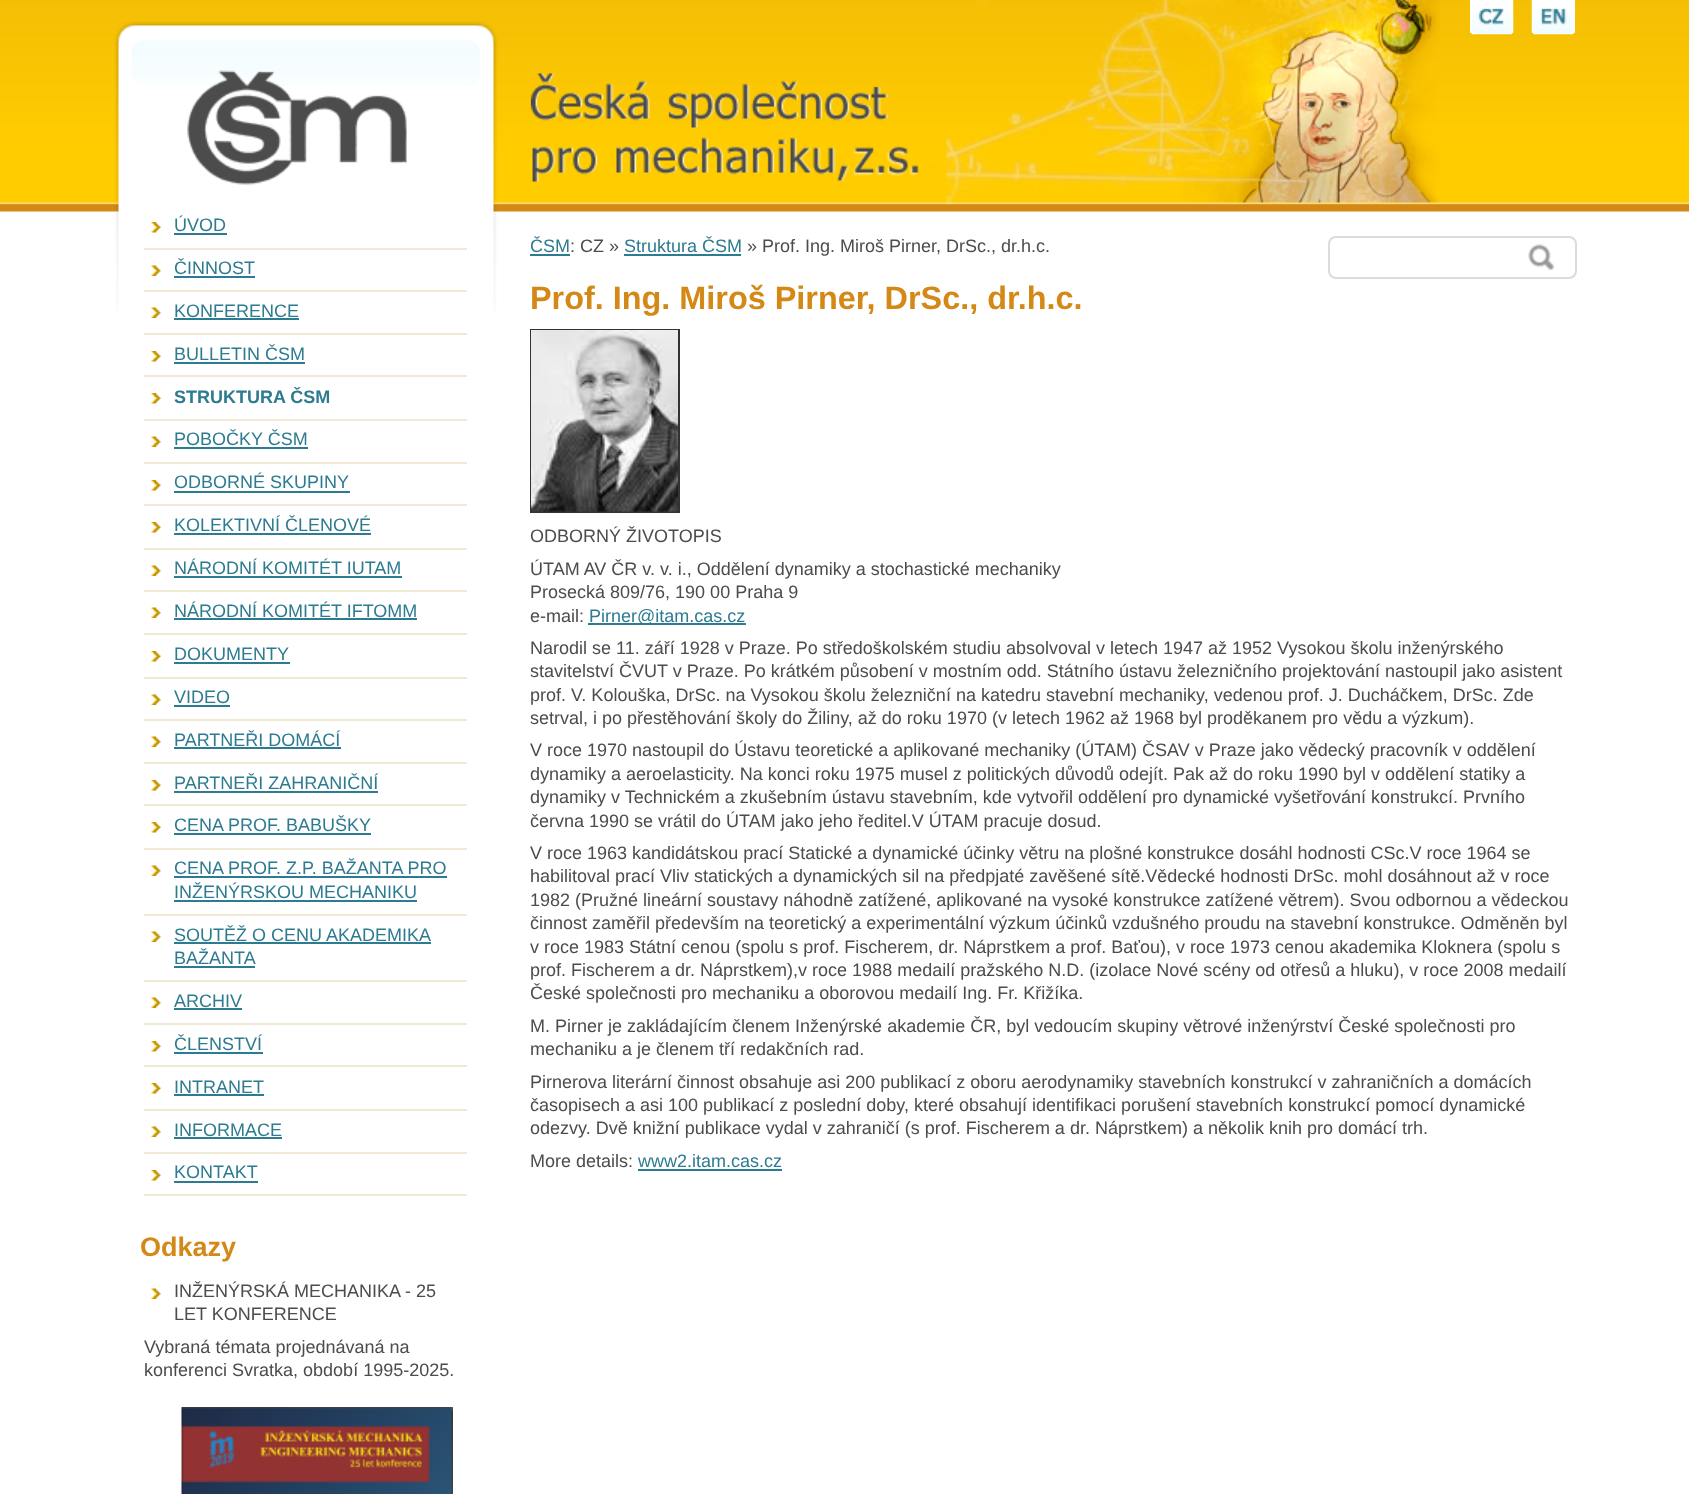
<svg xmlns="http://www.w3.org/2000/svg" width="1689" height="1494">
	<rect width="100%" height="100%" fill="#FFFFFF" />
	<image x="0" y="0" width="1689" height="212" href="assets/img1.png" />
	<image x="114" y="0" width="1326" height="312" href="assets/img2.png" />
	<image x="110" y="4" width="43" height="31" href="assets/img3.png" />
	<image x="1470" y="0" width="44" height="35" href="assets/img4.png" />
	<image x="1531" y="0" width="44" height="35" href="assets/img5.png" />
	<image x="185" y="69" width="70" height="30" href="assets/img6.png" />
	<image x="531" y="69" width="323" height="114" href="assets/img7.png" />
	<rect x="144" y="248" width="323" height="2" fill="#F1EAD3" />
	<image x="151" y="222" width="10" height="11" href="assets/img8.png" />
	<text x="174" y="231" font-family="Liberation Sans" font-size="18" fill="#2D7B91">ÚVOD</text>
	<rect x="174" y="233" width="53" height="2" fill="#2D7B91" />
	<rect x="144" y="290" width="323" height="2" fill="#F1EAD3" />
	<image x="151" y="265" width="10" height="11" href="assets/img9.png" />
	<text x="174" y="274" font-family="Liberation Sans" font-size="18" fill="#2D7B91">ČINNOST</text>
	<rect x="174" y="276" width="81" height="2" fill="#2D7B91" />
	<rect x="144" y="333" width="323" height="2" fill="#F1EAD3" />
	<image x="151" y="307" width="10" height="11" href="assets/img9.png" />
	<text x="174" y="317" font-family="Liberation Sans" font-size="18" fill="#2D7B91">KONFERENCE</text>
	<rect x="174" y="318" width="125" height="2" fill="#2D7B91" />
	<rect x="144" y="375" width="323" height="2" fill="#F1EAD3" />
	<image x="151" y="351" width="10" height="11" href="assets/img8.png" />
	<text x="174" y="360" font-family="Liberation Sans" font-size="18" fill="#2D7B91">BULLETIN ČSM</text>
	<rect x="174" y="362" width="131" height="2" fill="#2D7B91" />
	<rect x="144" y="419" width="323" height="2" fill="#F1EAD3" />
	<image x="151" y="393" width="10" height="11" href="assets/img8.png" />
	<text x="174" y="403" font-family="Liberation Sans" font-size="18" font-weight="700" fill="#2D7B91">STRUKTURA ČSM</text>
	<rect x="144" y="462" width="323" height="2" fill="#F1EAD3" />
	<image x="151" y="436" width="10" height="11" href="assets/img9.png" />
	<text x="174" y="445" font-family="Liberation Sans" font-size="18" fill="#2D7B91">POBOČKY ČSM</text>
	<rect x="174" y="447" width="134" height="2" fill="#2D7B91" />
	<rect x="144" y="504" width="323" height="2" fill="#F1EAD3" />
	<image x="151" y="480" width="10" height="11" href="assets/img8.png" />
	<text x="174" y="488" font-family="Liberation Sans" font-size="18" fill="#2D7B91">ODBORNÉ SKUPINY</text>
	<rect x="174" y="491" width="176" height="2" fill="#2D7B91" />
	<rect x="144" y="548" width="323" height="2" fill="#F1EAD3" />
	<image x="151" y="522" width="10" height="11" href="assets/img8.png" />
	<text x="174" y="531" font-family="Liberation Sans" font-size="18" fill="#2D7B91">KOLEKTIVNÍ ČLENOVÉ</text>
	<rect x="174" y="533" width="197" height="2" fill="#2D7B91" />
	<rect x="144" y="590" width="323" height="2" fill="#F1EAD3" />
	<image x="151" y="565" width="10" height="11" href="assets/img9.png" />
	<text x="174" y="574" font-family="Liberation Sans" font-size="18" fill="#2D7B91">NÁRODNÍ KOMITÉT IUTAM</text>
	<rect x="174" y="576" width="228" height="2" fill="#2D7B91" />
	<rect x="144" y="633" width="323" height="2" fill="#F1EAD3" />
	<image x="151" y="607" width="10" height="11" href="assets/img9.png" />
	<text x="174" y="617" font-family="Liberation Sans" font-size="18" fill="#2D7B91">NÁRODNÍ KOMITÉT IFTOMM</text>
	<rect x="174" y="618" width="243" height="2" fill="#2D7B91" />
	<rect x="144" y="677" width="323" height="2" fill="#F1EAD3" />
	<image x="151" y="651" width="10" height="11" href="assets/img8.png" />
	<text x="174" y="660" font-family="Liberation Sans" font-size="18" fill="#2D7B91">DOKUMENTY</text>
	<rect x="174" y="662" width="116" height="2" fill="#2D7B91" />
	<rect x="144" y="719" width="323" height="2" fill="#F1EAD3" />
	<image x="151" y="694" width="10" height="11" href="assets/img9.png" />
	<text x="174" y="703" font-family="Liberation Sans" font-size="18" fill="#2D7B91">VIDEO</text>
	<rect x="174" y="705" width="56" height="2" fill="#2D7B91" />
	<rect x="144" y="762" width="323" height="2" fill="#F1EAD3" />
	<image x="151" y="736" width="10" height="11" href="assets/img9.png" />
	<text x="174" y="746" font-family="Liberation Sans" font-size="18" fill="#2D7B91">PARTNEŘI DOMÁCÍ</text>
	<rect x="174" y="747" width="167" height="2" fill="#2D7B91" />
	<rect x="144" y="804" width="323" height="2" fill="#F1EAD3" />
	<image x="151" y="780" width="10" height="11" href="assets/img8.png" />
	<text x="174" y="789" font-family="Liberation Sans" font-size="18" fill="#2D7B91">PARTNEŘI ZAHRANIČNÍ</text>
	<rect x="174" y="791" width="204" height="2" fill="#2D7B91" />
	<rect x="144" y="848" width="323" height="2" fill="#F1EAD3" />
	<image x="151" y="822" width="10" height="11" href="assets/img8.png" />
	<text x="174" y="831" font-family="Liberation Sans" font-size="18" fill="#2D7B91">CENA PROF. BABUŠKY</text>
	<rect x="174" y="833" width="197" height="2" fill="#2D7B91" />
	<rect x="144" y="914" width="323" height="2" fill="#F1EAD3" />
	<image x="151" y="865" width="10" height="11" href="assets/img9.png" />
	<text x="174" y="874" font-family="Liberation Sans" font-size="18" fill="#2D7B91">CENA PROF. Z.P. BAŽANTA PRO</text>
	<rect x="174" y="876" width="273" height="2" fill="#2D7B91" />
	<text x="174" y="898" font-family="Liberation Sans" font-size="18" fill="#2D7B91">INŽENÝRSKOU MECHANIKU</text>
	<rect x="174" y="900" width="243" height="2" fill="#2D7B91" />
	<rect x="144" y="980" width="323" height="2" fill="#F1EAD3" />
	<image x="151" y="931" width="10" height="11" href="assets/img9.png" />
	<text x="174" y="941" font-family="Liberation Sans" font-size="18" fill="#2D7B91">SOUTĚŽ O CENU AKADEMIKA</text>
	<rect x="174" y="942" width="257" height="2" fill="#2D7B91" />
	<text x="174" y="964" font-family="Liberation Sans" font-size="18" fill="#2D7B91">BAŽANTA</text>
	<rect x="174" y="966" width="81" height="2" fill="#2D7B91" />
	<rect x="144" y="1023" width="323" height="2" fill="#F1EAD3" />
	<image x="151" y="997" width="10" height="11" href="assets/img9.png" />
	<text x="174" y="1007" font-family="Liberation Sans" font-size="18" fill="#2D7B91">ARCHIV</text>
	<rect x="174" y="1008" width="68" height="2" fill="#2D7B91" />
	<rect x="144" y="1065" width="323" height="2" fill="#F1EAD3" />
	<image x="151" y="1041" width="10" height="11" href="assets/img8.png" />
	<text x="174" y="1050" font-family="Liberation Sans" font-size="18" fill="#2D7B91">ČLENSTVÍ</text>
	<rect x="174" y="1052" width="89" height="2" fill="#2D7B91" />
	<rect x="144" y="1109" width="323" height="2" fill="#F1EAD3" />
	<image x="151" y="1083" width="10" height="11" href="assets/img8.png" />
	<text x="174" y="1093" font-family="Liberation Sans" font-size="18" fill="#2D7B91">INTRANET</text>
	<rect x="174" y="1094" width="90" height="2" fill="#2D7B91" />
	<rect x="144" y="1152" width="323" height="2" fill="#F1EAD3" />
	<image x="151" y="1126" width="10" height="11" href="assets/img9.png" />
	<text x="174" y="1136" font-family="Liberation Sans" font-size="18" fill="#2D7B91">INFORMACE</text>
	<rect x="174" y="1137" width="108" height="2" fill="#2D7B91" />
	<rect x="144" y="1194" width="323" height="2" fill="#F1EAD3" />
	<image x="151" y="1170" width="10" height="11" href="assets/img8.png" />
	<text x="174" y="1178" font-family="Liberation Sans" font-size="18" fill="#2D7B91">KONTAKT</text>
	<rect x="174" y="1181" width="84" height="2" fill="#2D7B91" />
	<text x="140" y="1256" font-family="Liberation Sans" font-size="27" font-weight="700" fill="#D48815">Odkazy</text>
	<image x="151" y="1288" width="10" height="11" href="assets/img9.png" />
	<g font-family="Liberation Sans" font-size="18" fill="#4C4C4C">
		<text x="174" y="1297">INŽENÝRSKÁ MECHANIKA - 25</text>
		<text x="174" y="1320">LET KONFERENCE</text>
		<text x="144" y="1353">Vybraná témata projednávaná na</text>
		<text x="144" y="1376">konferenci Svratka, období 1995-2025.</text>
	</g>
	<image x="181" y="1407" width="272" height="87" href="assets/img10.png" />
	<text x="530" y="252" font-family="Liberation Sans" font-size="18" fill="#2D7B91">ČSM</text>
	<rect x="530" y="254" width="40" height="2" fill="#2D7B91" />
	<text x="570" y="252" font-family="Liberation Sans" font-size="18" fill="#4C4C4C">: CZ »</text>
	<text x="624" y="252" font-family="Liberation Sans" font-size="18" fill="#2D7B91">Struktura ČSM</text>
	<rect x="624" y="254" width="117" height="2" fill="#2D7B91" />
	<text x="747" y="252" font-family="Liberation Sans" font-size="18" fill="#4C4C4C">» Prof. Ing. Miroš Pirner, DrSc., dr.h.c.</text>
	<rect x="1329" y="237" width="247" height="41" rx="7" fill="none" stroke="#DBDBDB" stroke-width="2" />
	<image x="1528" y="244" width="26" height="26" href="assets/img11.png" />
	<text x="530" y="309" font-family="Liberation Sans" font-size="32.4" font-weight="700" fill="#D48815">Prof. Ing. Miroš Pirner, DrSc., dr.h.c.</text>
	<rect x="531" y="330" width="148" height="182" fill="none" stroke="#333333" stroke-width="2" />
	<image x="531" y="330" width="147" height="182" href="assets/img12.png" />
	<g font-family="Liberation Sans" font-size="18" fill="#4C4C4C">
		<text x="530" y="542">ODBORNÝ ŽIVOTOPIS</text>
		<text x="530" y="575">ÚTAM AV ČR v. v. i., Oddělení dynamiky a stochastické mechaniky</text>
		<text x="530" y="598">Prosecká 809/76, 190 00 Praha 9</text>
		<text x="530" y="622">e-mail:</text>
	</g>
	<rect x="588" y="623" width="158" height="2" fill="#2D7B91" />
	<text x="589" y="622" font-family="Liberation Sans" font-size="18" fill="#2D7B91">Pirner@itam.cas.cz</text>
	<g font-family="Liberation Sans" font-size="18" fill="#4C4C4C">
		<text x="530" y="654">Narodil se 11. září 1928 v Praze. Po středoškolském studiu absolvoval v letech 1947 až 1952 Vysokou školu inženýrského</text>
		<text x="530" y="677">stavitelství ČVUT v Praze. Po krátkém působení v mostním odd. Státního ústavu železničního projektování nastoupil jako asistent</text>
		<text x="530" y="701">prof. V. Kolouška, DrSc. na Vysokou školu železniční na katedru stavební mechaniky, vedenou prof. J. Ducháčkem, DrSc. Zde</text>
		<text x="530" y="724">setrval, i po přestěhování školy do Žiliny, až do roku 1970 (v letech 1962 až 1968 byl proděkanem pro vědu a výzkum).</text>
		<text x="530" y="756">V roce 1970 nastoupil do Ústavu teoretické a aplikované mechaniky (ÚTAM) ČSAV v Praze jako vědecký pracovník v oddělení</text>
		<text x="530" y="780">dynamiky a aeroelasticity. Na konci roku 1975 musel z politických důvodů odejít. Pak až do roku 1990 byl v oddělení statiky a</text>
		<text x="530" y="803">dynamiky v Technickém a zkušebním ústavu stavebním, kde vytvořil oddělení pro dynamické vyšetřování konstrukcí. Prvního</text>
		<text x="530" y="827">června 1990 se vrátil do ÚTAM jako jeho ředitel.V ÚTAM pracuje dosud.</text>
		<text x="530" y="859">V roce 1963 kandidátskou prací Statické a dynamické účinky větru na plošné konstrukce dosáhl hodnosti CSc.V roce 1964 se</text>
		<text x="530" y="882">habilitoval prací Vliv statických a dynamických sil na předpjaté zavěšené sítě.Vědecké hodnosti DrSc. mohl dosáhnout až v roce</text>
		<text x="530" y="906">1982 (Pružné lineární soustavy náhodně zatížené, aplikované na vysoké konstrukce zatížené větrem). Svou odbornou a vědeckou</text>
		<text x="530" y="929">činnost zaměřil především na teoretický a experimentální výzkum účinků vzdušného proudu na stavební konstrukce. Odměněn byl</text>
		<text x="530" y="953">v roce 1983 Státní cenou (spolu s prof. Fischerem, dr. Náprstkem a prof. Baťou), v roce 1973 cenou akademika Kloknera (spolu s</text>
		<text x="530" y="976">prof. Fischerem a dr. Náprstkem),v roce 1988 medailí pražského N.D. (izolace Nové scény od otřesů a hluku), v roce 2008 medailí</text>
		<text x="530" y="999">České společnosti pro mechaniku a oborovou medailí Ing. Fr. Křižíka.</text>
		<text x="530" y="1032">M. Pirner je zakládajícím členem Inženýrské akademie ČR, byl vedoucím skupiny větrové inženýrství České společnosti pro</text>
		<text x="530" y="1055">mechaniku a je členem tří redakčních rad.</text>
		<text x="530" y="1088">Pirnerova literární činnost obsahuje asi 200 publikací z oboru aerodynamiky stavebních konstrukcí v zahraničních a domácích</text>
		<text x="530" y="1111">časopisech a asi 100 publikací z poslední doby, které obsahují identifikaci porušení stavebních konstrukcí pomocí dynamické</text>
		<text x="530" y="1134">odezvy. Dvě knižní publikace vydal v zahraničí (s prof. Fischerem a dr. Náprstkem) a několik knih pro domácí trh.</text>
		<text x="530" y="1167">More details:</text>
	</g>
	<text x="638" y="1167" font-family="Liberation Sans" font-size="18" fill="#2D7B91">www2.itam.cas.cz</text>
	<rect x="638" y="1169" width="144" height="2" fill="#2D7B91" />
</svg>
